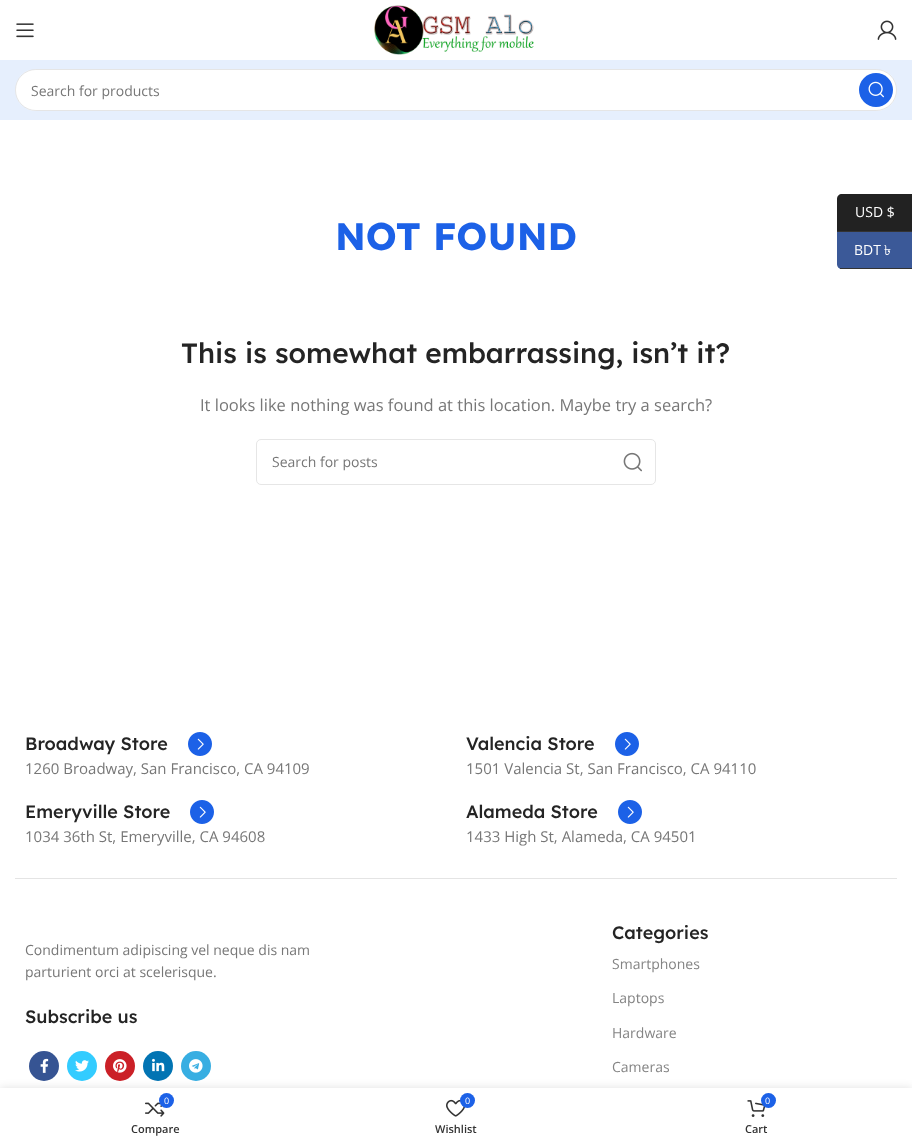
<svg xmlns="http://www.w3.org/2000/svg" width="912" height="1143">
	<rect width="100%" height="100%" fill="#FFFFFF" />
	<image x="16" y="23" width="18" height="15" href="assets/img1.png" />
	<image x="374" y="5" width="160" height="50" href="assets/img2.png" />
	<image x="877" y="20" width="20" height="20" href="assets/img3.png" />
	<rect x="0" y="60" width="912" height="60" fill="#E6EFFD" />
	<rect x="15" y="69" width="882" height="42" rx="21" fill="#FFFFFF" />
	<rect x="15.5" y="69.5" width="881" height="41" rx="20.5" fill="none" stroke="#000000" stroke-opacity="0.1" />
	<text x="31" y="96" font-family="Open Sans" font-size="14" fill="#777777">Search for products</text>
	<circle cx="876" cy="90" r="17" fill="#1C61E7" />
	<image x="868" y="81" width="16" height="17" href="assets/img4.png" />
	<text x="335" y="250" font-family="Lexend Deca" font-size="38.25" font-weight="700" fill="#1C61E7">NOT FOUND</text>
	<text x="181" y="363" font-family="Lexend Deca" font-size="28" font-weight="500" fill="#242424">This is somewhat embarrassing, isn’t it?</text>
	<text x="200" y="411" font-family="Open Sans" font-size="16.5" fill="#777777">It looks like nothing was found at this location. Maybe try a search?</text>
	<rect x="256.5" y="439.5" width="399" height="45" rx="4.5" fill="none" stroke="#E6E6E6" />
	<text x="272" y="467" font-family="Open Sans" font-size="14" fill="#777777">Search for posts</text>
	<image x="623" y="452" width="19" height="20" href="assets/img5.png" />
	<rect x="15" y="878" width="882" height="1" fill="#E4E4E4" />
	<text x="25" y="750" font-family="Lexend Deca" font-size="18" font-weight="500" fill="#242424">Broadway Store</text>
	<image x="188" y="732" width="24" height="24" href="assets/img6.png" />
	<text x="25" y="774" font-family="Open Sans" font-size="15" fill="#777777">1260 Broadway, San Francisco, CA 94109</text>
	<text x="466" y="750" font-family="Lexend Deca" font-size="18" font-weight="500" fill="#242424">Valencia Store</text>
	<image x="615" y="732" width="24" height="24" href="assets/img6.png" />
	<text x="466" y="774" font-family="Open Sans" font-size="15" fill="#777777">1501 Valencia St, San Francisco, CA 94110</text>
	<text x="25" y="818" font-family="Lexend Deca" font-size="18" font-weight="500" fill="#242424">Emeryville Store</text>
	<image x="190" y="800" width="24" height="24" href="assets/img6.png" />
	<text x="25" y="842" font-family="Open Sans" font-size="15" fill="#777777">1034 36th St, Emeryville, CA 94608</text>
	<text x="466" y="818" font-family="Lexend Deca" font-size="18" font-weight="500" fill="#242424">Alameda Store</text>
	<image x="618" y="800" width="24" height="24" href="assets/img6.png" />
	<text x="466" y="842" font-family="Open Sans" font-size="15" fill="#777777">1433 High St, Alameda, CA 94501</text>
	<g font-family="Open Sans" font-size="14" fill="#777777">
		<text x="25" y="955">Condimentum adipiscing vel neque dis nam</text>
		<text x="25" y="977">parturient orci at scelerisque.</text>
	</g>
	<text x="25" y="1023" font-family="Lexend Deca" font-size="18" font-weight="500" fill="#242424">Subscribe us</text>
	<circle cx="44" cy="1066" r="15" fill="#365493" />
	<image x="40" y="1058" width="9" height="15" href="assets/img7.png" />
	<circle cx="82" cy="1066" r="15" fill="#33CCFF" />
	<image x="75" y="1060" width="14" height="12" href="assets/img8.png" />
	<circle cx="120" cy="1066" r="15" fill="#CB2027" />
	<image x="113" y="1059" width="14" height="14" href="assets/img9.png" />
	<circle cx="158" cy="1066" r="15" fill="#0274B3" />
	<image x="152" y="1058" width="13" height="14" href="assets/img10.png" />
	<circle cx="196" cy="1066" r="15" fill="#37AEE2" />
	<image x="189" y="1059" width="14" height="14" href="assets/img11.png" />
	<text x="612" y="939" font-family="Lexend Deca" font-size="18" font-weight="500" fill="#242424">Categories</text>
	<g font-family="Open Sans" font-size="14" fill="#848484">
		<text x="612" y="969">Smartphones</text>
		<text x="612" y="1003">Laptops</text>
		<text x="612" y="1038">Hardware</text>
		<text x="612" y="1072">Cameras</text>
	</g>
	<path d="M842 194H912V232H837V199C837 196 839 194 842 194Z" fill="#222222" />
	<rect x="837" y="231" width="75" height="1" fill="#333333" />
	<text x="855" y="217" font-family="Open Sans" font-size="14" fill="#FFFFFF">USD $</text>
	<path d="M837 232H912V269H842C839 269 837 267 837 264Z" fill="#3B5998" />
	<rect x="840" y="268" width="72" height="1" fill="#333333" />
	<text x="854" y="255" font-family="Open Sans" font-size="14" fill="#FFFFFF">BDT</text>
	<text x="884" y="255" font-family="Lohit Bengali" font-size="14" fill="#FFFFFF">৳</text>
	<rect x="0" y="1088" width="912" height="55" fill="#000000" fill-opacity="0.12" filter="blur(4.5px)" />
	<rect x="0" y="1088" width="912" height="55" fill="#FFFFFF" />
	<image x="145" y="1102" width="20" height="15" href="assets/img12.png" />
	<circle cx="166.5" cy="1100.5" r="7.5" fill="#1C61E7" />
	<text x="164" y="1104" font-family="Open Sans" font-size="9" fill="#FFFFFF">0</text>
	<text x="131" y="1133" font-family="Open Sans" font-size="11" font-weight="600" fill="#333333">Compare</text>
	<image x="446" y="1099" width="20" height="18" href="assets/img13.png" />
	<circle cx="467.5" cy="1100.5" r="7.5" fill="#1C61E7" />
	<text x="465" y="1104" font-family="Open Sans" font-size="9" fill="#FFFFFF">0</text>
	<text x="435" y="1133" font-family="Open Sans" font-size="11" font-weight="600" fill="#333333">Wishlist</text>
	<image x="747" y="1100" width="19" height="17" href="assets/img14.png" />
	<circle cx="768.5" cy="1100.5" r="7.5" fill="#1C61E7" />
	<text x="765" y="1104" font-family="Open Sans" font-size="9" fill="#FFFFFF">0</text>
	<text x="745" y="1133" font-family="Open Sans" font-size="11" font-weight="600" fill="#333333">Cart</text>
</svg>
